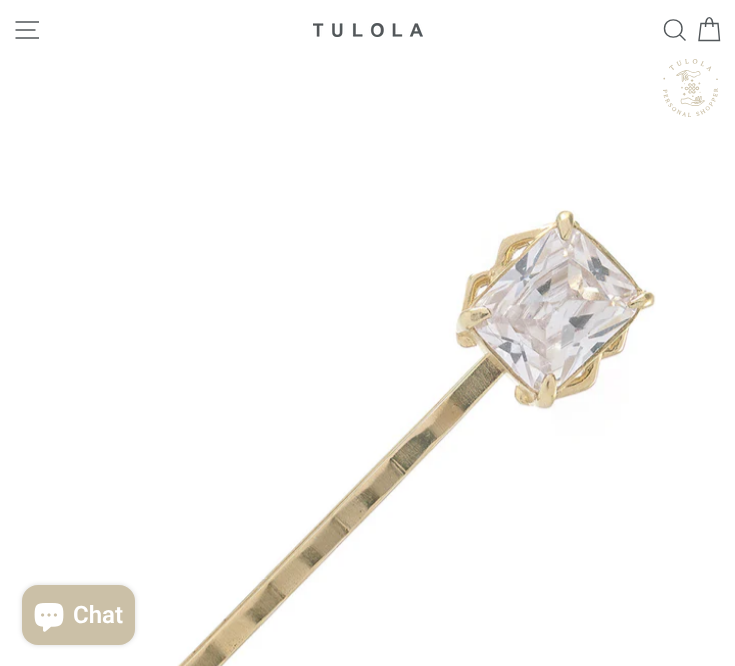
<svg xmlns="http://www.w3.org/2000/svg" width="735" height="666">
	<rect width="100%" height="100%" fill="#FFFFFF" />
	<path d="M15.5 22H39M15.5 30H35.5M15.5 38H39" fill="none" stroke="#52575A" stroke-width="1.4" />
	<image x="313" y="23" width="110" height="14" href="assets/img1.png" />
	<path d="M682 28.5C682 40 664.5 40 664.5 28.5C664.5 17 682 17 682 28.5ZM685.5 40.5L679.5 34.5M705.5 27C705.5 14.5 713 14.5 713 27M701 23.5H718L719.5 40.5H699Z" fill="none" stroke="#52575A" stroke-width="1.4" />
	<image x="663" y="59" width="55" height="58" href="assets/img2.png" />
	<image x="177" y="208" width="479" height="458" href="assets/img3.png" />
	<rect x="22" y="585" width="113" height="60" rx="16" fill="#000000" fill-opacity="0.15" filter="blur(2.5px)" />
	<rect x="22" y="585" width="113" height="60" rx="16" fill="#CBC0A7" />
	<image x="34" y="603" width="30" height="29" href="assets/img4.png" />
	<text x="73" y="623" font-family="Roboto" font-size="24" font-weight="600" fill="#FFFFFF">Chat</text>
</svg>
